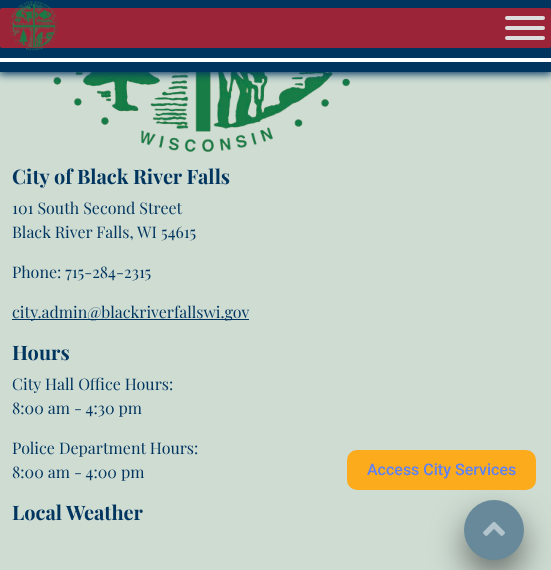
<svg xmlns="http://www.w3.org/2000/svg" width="551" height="570">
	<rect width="100%" height="100%" fill="#CEDCD2" />
	<image x="53" y="72" width="298" height="81" href="assets/img2.png" />
	<rect x="-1" y="0" width="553" height="74" fill="#00355F" filter="blur(4.5px)" />
	<rect x="0" y="0" width="551" height="72" fill="#00355F" />
	<rect x="0" y="8" width="551" height="40" rx="2" fill="#9C2438" />
	<image x="10" y="1" width="48" height="50" href="assets/img1.png" />
	<rect x="505" y="16" width="40" height="4" rx="2" fill="#DDDDDD" />
	<rect x="505" y="26" width="40" height="4" rx="2" fill="#DDDDDD" />
	<rect x="505" y="36" width="40" height="4" rx="2" fill="#DDDDDD" />
	<rect x="0" y="58" width="551" height="4" fill="#FFFFFF" />
	<text x="12" y="184" font-family="Playfair Display" font-size="20" font-weight="700" fill="#00355F">City of Black River Falls</text>
	<g font-family="Playfair Display" font-size="16" fill="#00355F">
		<text x="12" y="214">101 South Second Street</text>
		<text x="12" y="238">Black River Falls, WI 54615</text>
		<text x="12" y="278">Phone: 715-284-2315</text>
	</g>
	<rect x="12" y="319" width="237" height="1" fill="#00355F" />
	<text x="12" y="318" font-family="Playfair Display" font-size="16" fill="#00355F">city.admin@blackriverfallswi.gov</text>
	<text x="12" y="360" font-family="Playfair Display" font-size="20" font-weight="700" fill="#00355F">Hours</text>
	<g font-family="Playfair Display" font-size="16" fill="#00355F">
		<text x="12" y="390">City Hall Office Hours:</text>
		<text x="12" y="414">8:00 am - 4:30 pm</text>
		<text x="12" y="454">Police Department Hours:</text>
		<text x="12" y="478">8:00 am - 4:00 pm</text>
	</g>
	<text x="12" y="520" font-family="Playfair Display" font-size="20" font-weight="700" fill="#00355F">Local Weather</text>
	<rect x="464" y="516" width="60" height="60" rx="30" fill="#676E69" filter="blur(16px)" />
	<rect x="347" y="450" width="189" height="40" rx="10" fill="#FCAB1C" />
	<text x="367" y="475" font-family="Roboto" font-size="16" font-weight="500" fill="#5E81F4">Access City Services</text>
	<circle cx="494" cy="530" r="30" fill="#678999" />
	<image x="483" y="521" width="22" height="15" href="assets/img3.png" />
</svg>
